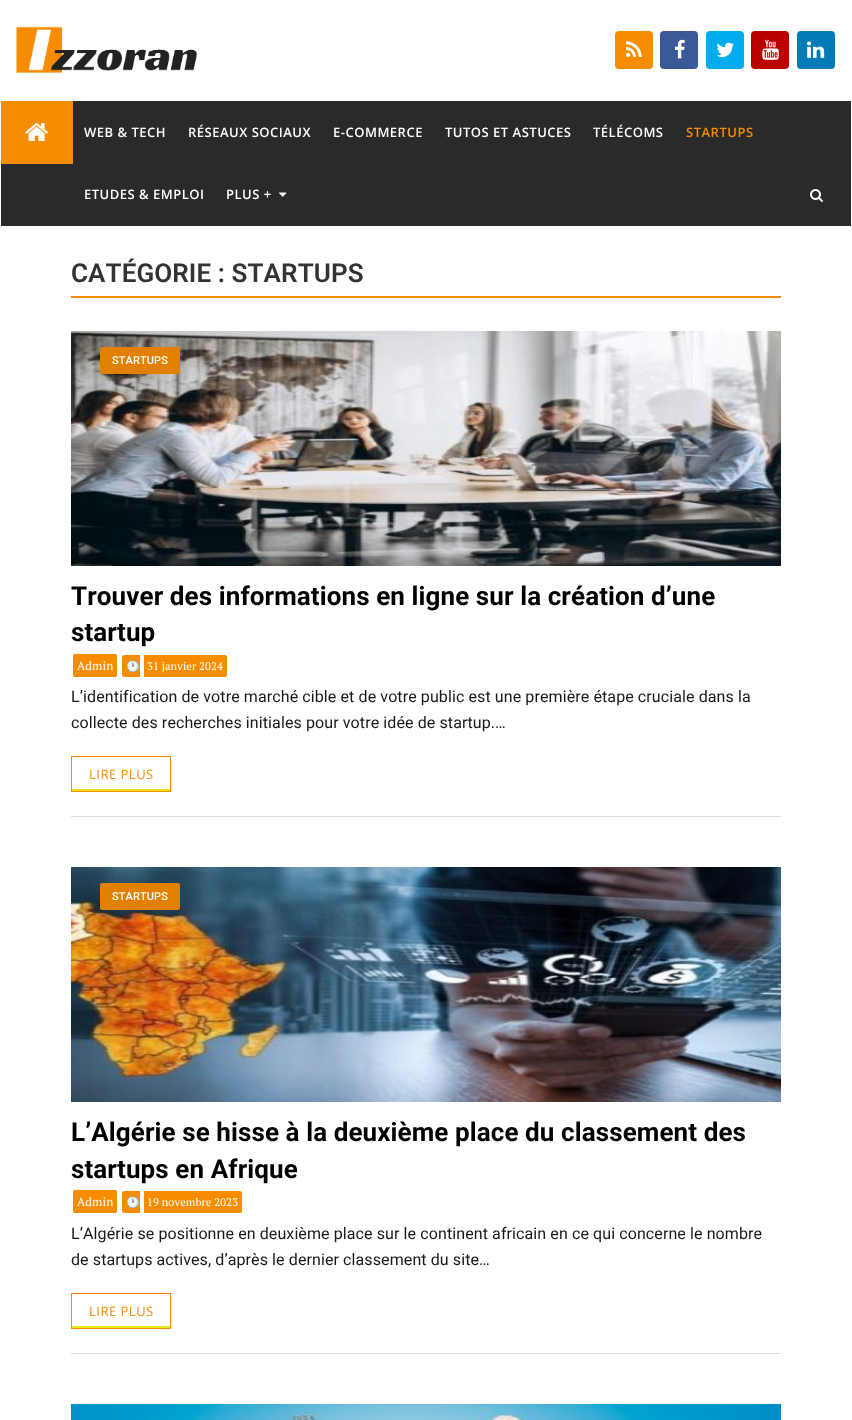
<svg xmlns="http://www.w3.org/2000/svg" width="852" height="1420">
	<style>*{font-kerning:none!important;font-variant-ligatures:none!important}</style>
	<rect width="100%" height="100%" fill="#FFFFFF" />
	<image x="16" y="26" width="182" height="48" href="assets/img1.png" />
	<rect x="615" y="31" width="38" height="38" rx="4" fill="#F88C00" />
	<image x="626" y="41" width="16" height="16" href="assets/img2.png" />
	<rect x="660" y="31" width="38" height="38" rx="4" fill="#3B5998" />
	<image x="675" y="39" width="10" height="20" href="assets/img3.png" />
	<rect x="706" y="31" width="38" height="38" rx="4" fill="#00ACED" />
	<image x="716" y="42" width="18" height="15" href="assets/img4.png" />
	<rect x="751" y="31" width="38" height="38" rx="4" fill="#BB0000" />
	<image x="762" y="39" width="17" height="21" href="assets/img5.png" />
	<rect x="797" y="31" width="38" height="38" rx="4" fill="#007BB6" />
	<image x="807" y="41" width="18" height="17" href="assets/img6.png" />
	<rect x="1" y="101" width="850" height="125" fill="#2A2A2A" />
	<rect x="1" y="101" width="72" height="63" fill="#F88C00" />
	<image x="25" y="123" width="23" height="18" href="assets/img7.png" />
	<g font-family="Open Sans" font-size="13" font-weight="600" letter-spacing="0.5" fill="#FFFFFF">
		<text x="84" y="137">WEB &amp; TECH</text>
		<text x="188" y="137">RÉSEAUX SOCIAUX</text>
		<text x="333" y="137">E-COMMERCE</text>
		<text x="445" y="137">TUTOS ET ASTUCES</text>
		<text x="593" y="137">TÉLÉCOMS</text>
	</g>
	<text x="686" y="137" font-family="Open Sans" font-size="13" font-weight="600" letter-spacing="0.5" fill="#F88C00">STARTUPS</text>
	<g font-family="Open Sans" font-size="13" font-weight="600" letter-spacing="0.5" fill="#FFFFFF">
		<text x="84" y="199">ETUDES &amp; EMPLOI</text>
		<text x="226" y="199">PLUS +</text>
	</g>
	<image x="279" y="192" width="8" height="5" href="assets/img8.png" />
	<image x="810" y="189" width="13" height="13" href="assets/img9.png" />
	<text x="71" y="282" font-family="Roboto" font-size="26" font-weight="600" letter-spacing="0.1" fill="#333333">CATÉGORIE : STARTUPS</text>
	<rect x="71" y="296" width="710" height="2" fill="#F88C00" />
	<image x="71" y="331" width="710" height="235" href="assets/img10.png" />
	<rect x="100" y="347" width="80" height="27" rx="2" fill="#E28000" />
	<text x="112" y="364" font-family="Roboto" font-size="11" font-weight="500" letter-spacing="0.1" fill="#FFFFFF">STARTUPS</text>
	<g font-family="Roboto" font-size="26" font-weight="700" letter-spacing="0.1" fill="#000000">
		<text x="71" y="605">Trouver des informations en ligne sur la création d’une</text>
		<text x="71" y="641">startup</text>
	</g>
	<rect x="73" y="654" width="44" height="23" rx="2" fill="#F88C00" />
	<text x="77" y="670" font-family="PT Serif" font-size="12" letter-spacing="0.1" fill="#FFFFFF">Admin</text>
	<path d="M124 655H140V677H124C123 677 122 676 122 675V657C122 656 123 655 124 655Z" fill="#F88C00" />
	<text x="126" y="670" font-family="Noto Color Emoji" font-size="11" letter-spacing="0.1" fill="#FFFFFF">🕐</text>
	<path d="M144 655H225C226 655 227 656 227 657V675C227 676 226 677 225 677H144Z" fill="#F88C00" />
	<text x="147" y="670" font-family="PT Serif" font-size="11" letter-spacing="0.1" fill="#FFFFFF">31 janvier 2024</text>
	<g font-family="Roboto" font-size="16" letter-spacing="0.1" fill="#181818">
		<text x="71" y="702">L’identification de votre marché cible et de votre public est une première étape cruciale dans la</text>
		<text x="71" y="728">collecte des recherches initiales pour votre idée de startup.…</text>
	</g>
	<rect x="72" y="789" width="98" height="2" fill="#E7E613" />
	<rect x="71.5" y="756.5" width="99" height="35" fill="none" stroke="#F88C00" />
	<text x="89" y="779" font-family="Open Sans" font-size="13" letter-spacing="0.5" fill="#F88C00">LIRE PLUS</text>
	<rect x="71" y="816" width="710" height="1" fill="#DDDDDD" />
	<image x="71" y="867" width="710" height="235" href="assets/img11.png" />
	<rect x="100" y="883" width="80" height="27" rx="2" fill="#E28000" />
	<text x="112" y="900" font-family="Roboto" font-size="11" font-weight="500" letter-spacing="0.1" fill="#FFFFFF">STARTUPS</text>
	<g font-family="Roboto" font-size="26" font-weight="700" letter-spacing="0.1" fill="#000000">
		<text x="71" y="1141">L’Algérie se hisse à la deuxième place du classement des</text>
		<text x="71" y="1178">startups en Afrique</text>
	</g>
	<rect x="73" y="1190" width="44" height="23" rx="2" fill="#F88C00" />
	<text x="77" y="1206" font-family="PT Serif" font-size="12" letter-spacing="0.1" fill="#FFFFFF">Admin</text>
	<path d="M124 1191H140V1213H124C123 1213 122 1212 122 1211V1193C122 1192 123 1191 124 1191Z" fill="#F88C00" />
	<text x="126" y="1206" font-family="Noto Color Emoji" font-size="11" letter-spacing="0.1" fill="#FFFFFF">🕐</text>
	<path d="M144 1191H240C241 1191 242 1192 242 1193V1211C242 1212 241 1213 240 1213H144Z" fill="#F88C00" />
	<text x="147" y="1206" font-family="PT Serif" font-size="11" letter-spacing="0.1" fill="#FFFFFF">19 novembre 2023</text>
	<g font-family="Roboto" font-size="16" letter-spacing="0.1" fill="#181818">
		<text x="71" y="1239">L’Algérie se positionne en deuxième place sur le continent africain en ce qui concerne le nombre</text>
		<text x="71" y="1265">de startups actives, d’après le dernier classement du site…</text>
	</g>
	<rect x="72" y="1326" width="98" height="2" fill="#E7E613" />
	<rect x="71.5" y="1293.5" width="99" height="35" fill="none" stroke="#F88C00" />
	<text x="89" y="1316" font-family="Open Sans" font-size="13" letter-spacing="0.5" fill="#F88C00">LIRE PLUS</text>
	<rect x="71" y="1353" width="710" height="1" fill="#DDDDDD" />
	<image x="71" y="1404" width="710" height="16" href="assets/img12.png" />
</svg>
